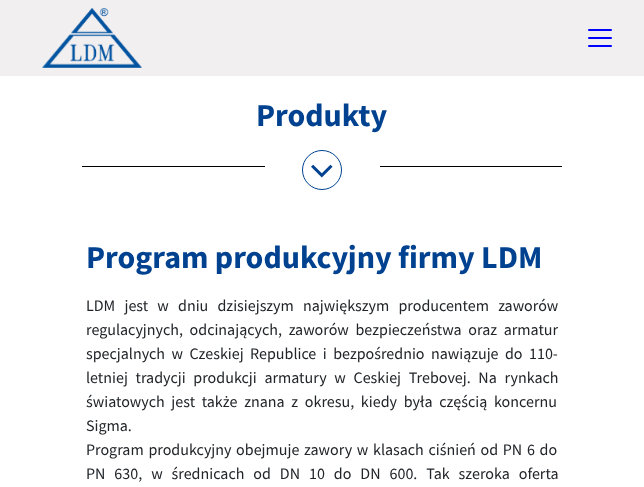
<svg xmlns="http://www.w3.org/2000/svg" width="644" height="487">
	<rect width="100%" height="100%" fill="#FFFFFF" />
	<rect x="0" y="0" width="644" height="76" fill="#F1EFEF" />
	<image x="42" y="8" width="100" height="60" href="assets/img1.png" />
	<image x="588" y="29" width="24" height="18" href="assets/img2.png" />
	<text x="256" y="126" font-family="Source Sans Pro" font-size="32" font-weight="700" fill="#004290">Produkty</text>
	<rect x="82" y="166" width="183" height="1" fill="#000000" />
	<image x="302" y="150" width="40" height="40" href="assets/img3.png" />
	<rect x="380" y="166" width="182" height="1" fill="#000000" />
	<text x="86" y="268" font-family="Source Sans Pro" font-size="32" font-weight="700" fill="#004290">Program produkcyjny firmy LDM</text>
	<g font-family="Source Sans Pro" font-size="16" fill="#212529">
		<text x="86" y="311" word-spacing="6">LDM jest w dniu dzisiejszym największym producentem zaworów</text>
		<text x="86" y="335" word-spacing="3.5">regulacyjnych, odcinających, zaworów bezpieczeństwa oraz armatur</text>
		<text x="86" y="359" word-spacing="3.25">specjalnych w Czeskiej Republice i bezpośrednio nawiązuje do 110-</text>
		<text x="86" y="383" word-spacing="4.5">letniej tradycji produkcji armatury w Ceskiej Trebovej. Na rynkach</text>
		<text x="86" y="407" word-spacing="3.5">światowych jest także znana z okresu, kiedy była częścią koncernu</text>
		<text x="86" y="431">Sigma.</text>
		<text x="86" y="455" word-spacing="1.5">Program produkcyjny obejmuje zawory w klasach ciśnień od PN 6 do</text>
		<text x="86" y="479" word-spacing="5.75">PN 630, w średnicach od DN 10 do DN 600. Tak szeroka oferta</text>
	</g>
</svg>
